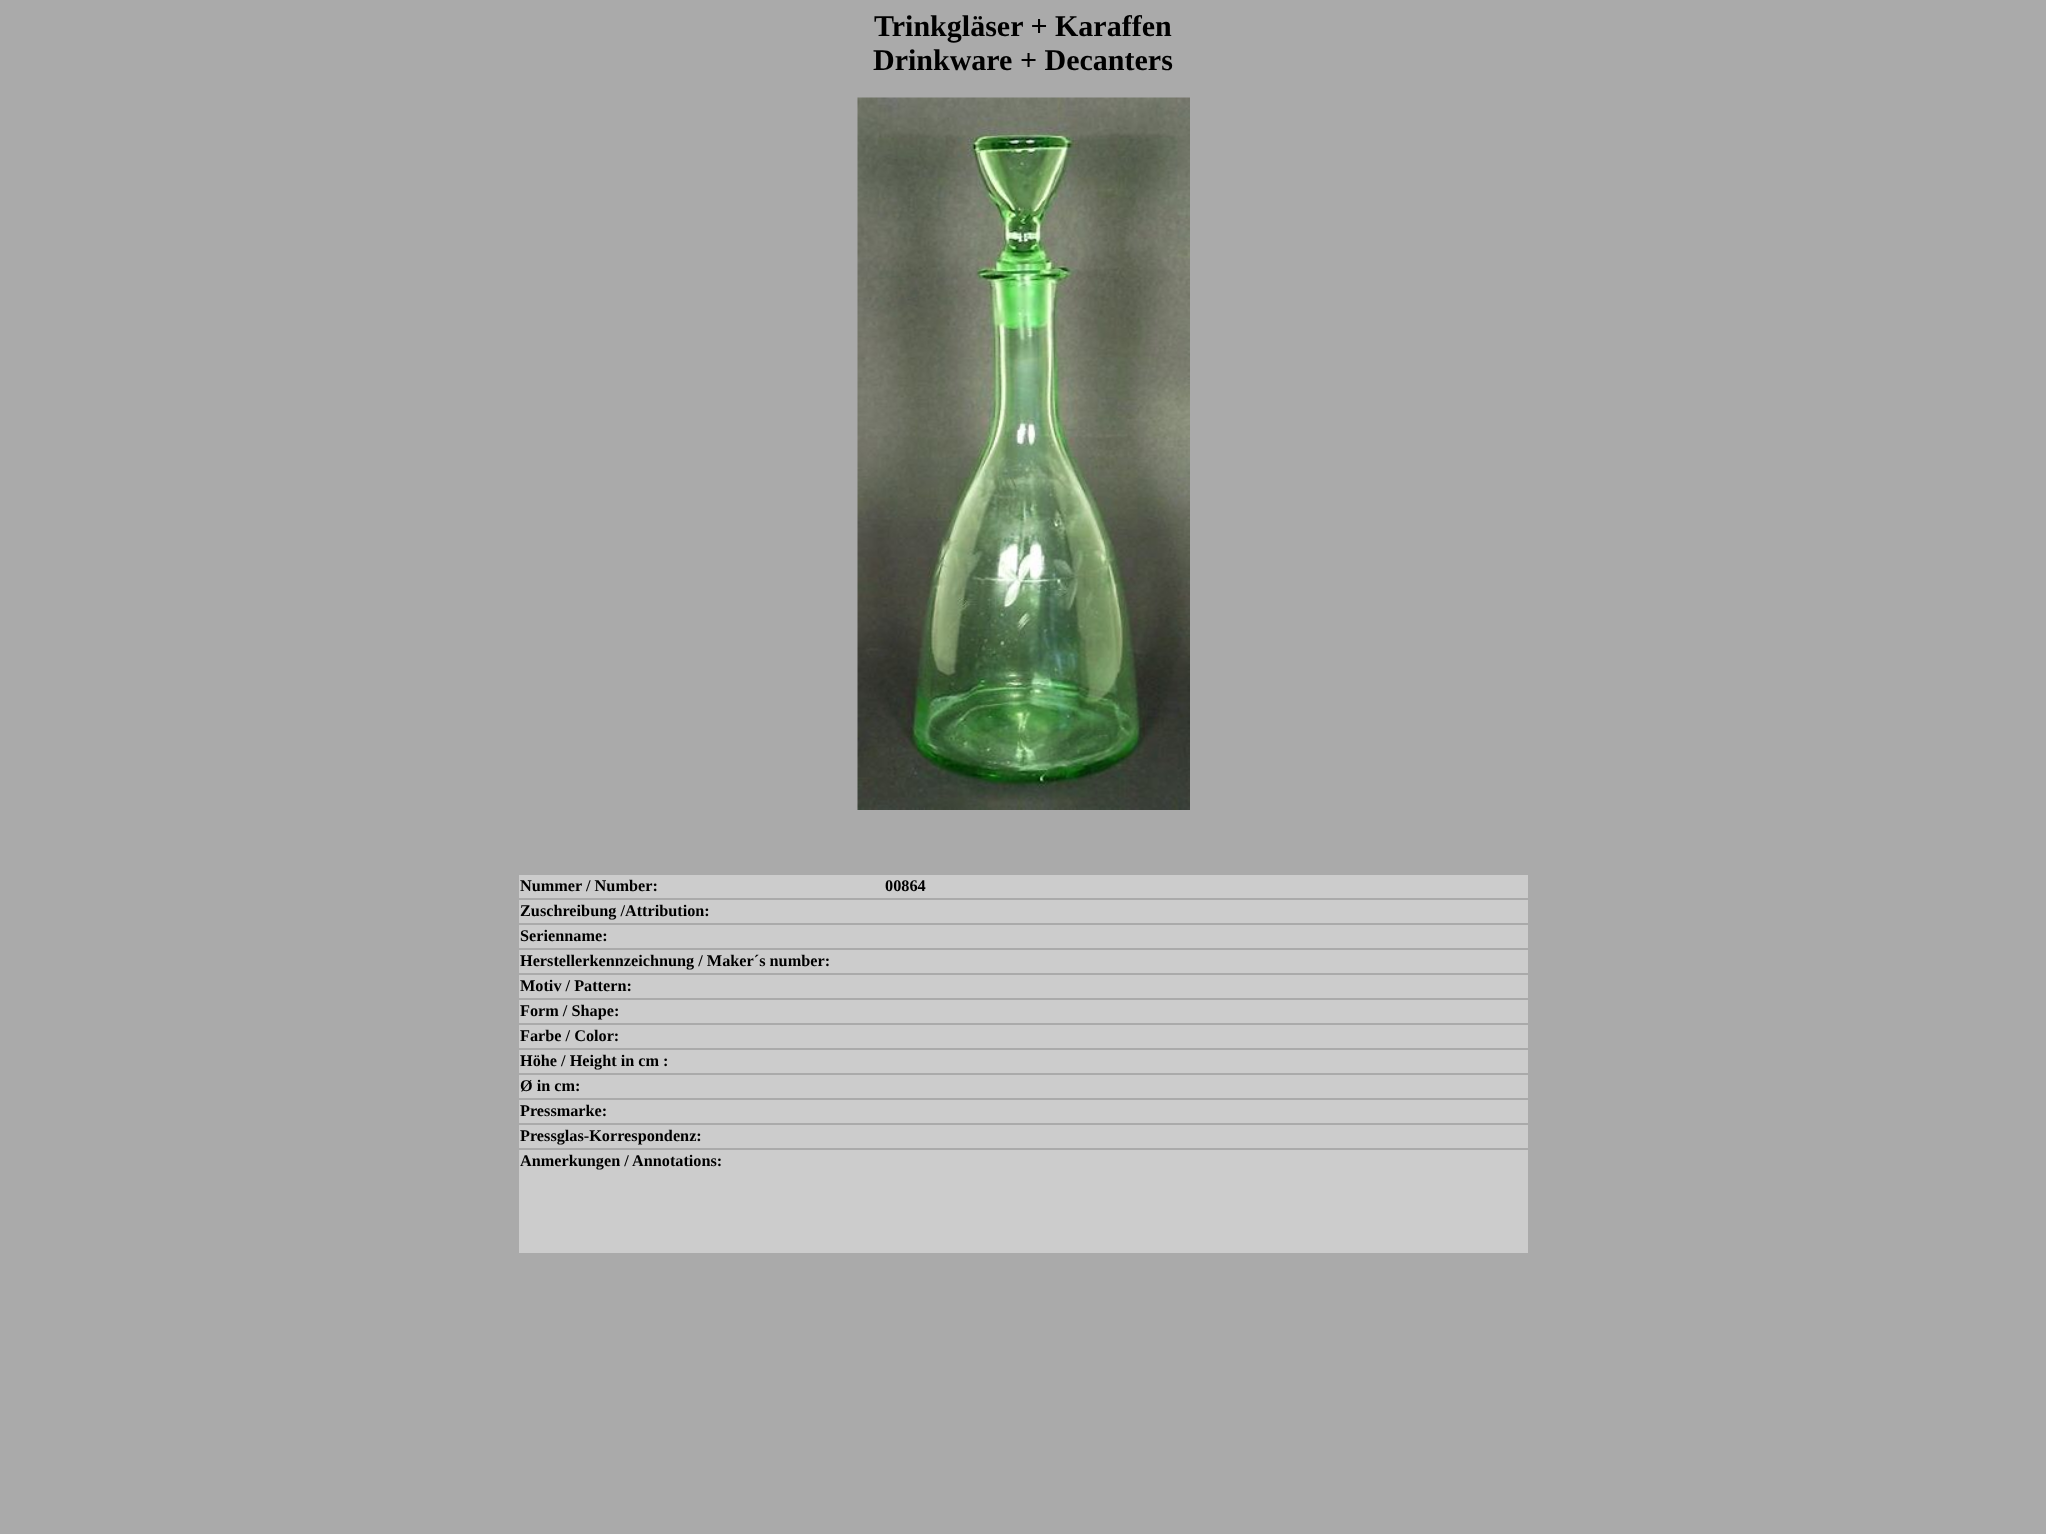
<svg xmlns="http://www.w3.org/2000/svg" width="2046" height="1534">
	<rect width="100%" height="100%" fill="#AAAAAA" />
	<g font-family="Liberation Serif" font-size="30" font-weight="700" fill="#000000">
		<text x="874" y="36">Trinkgläser + Karaffen</text>
		<text x="873" y="70">Drinkware + Decanters</text>
	</g>
	<image x="857" y="97" width="333" height="713" href="assets/img1.png" />
	<rect x="519" y="875" width="1009" height="23" fill="#CCCCCC" />
	<g font-family="Liberation Serif" font-size="16.25" font-weight="700" fill="#000000">
		<text x="520" y="891">Nummer / Number:</text>
		<text x="885" y="891">00864</text>
	</g>
	<rect x="519" y="900" width="1009" height="23" fill="#CCCCCC" />
	<text x="520" y="916" font-family="Liberation Serif" font-size="16.25" font-weight="700" fill="#000000">Zuschreibung /Attribution:</text>
	<rect x="519" y="925" width="1009" height="23" fill="#CCCCCC" />
	<text x="520" y="941" font-family="Liberation Serif" font-size="16.25" font-weight="700" fill="#000000">Serienname:</text>
	<rect x="519" y="950" width="1009" height="23" fill="#CCCCCC" />
	<text x="520" y="966" font-family="Liberation Serif" font-size="16.25" font-weight="700" fill="#000000">Herstellerkennzeichnung / Maker´s number:</text>
	<rect x="519" y="975" width="1009" height="23" fill="#CCCCCC" />
	<text x="520" y="991" font-family="Liberation Serif" font-size="16.25" font-weight="700" fill="#000000">Motiv / Pattern:</text>
	<rect x="519" y="1000" width="1009" height="23" fill="#CCCCCC" />
	<text x="520" y="1016" font-family="Liberation Serif" font-size="16.25" font-weight="700" fill="#000000">Form / Shape:</text>
	<rect x="519" y="1025" width="1009" height="23" fill="#CCCCCC" />
	<text x="520" y="1041" font-family="Liberation Serif" font-size="16.25" font-weight="700" fill="#000000">Farbe / Color:</text>
	<rect x="519" y="1050" width="1009" height="23" fill="#CCCCCC" />
	<text x="520" y="1066" font-family="Liberation Serif" font-size="16.25" font-weight="700" fill="#000000">Höhe / Height in cm :</text>
	<rect x="519" y="1075" width="1009" height="23" fill="#CCCCCC" />
	<text x="520" y="1091" font-family="Liberation Serif" font-size="16.25" font-weight="700" fill="#000000">Ø in cm:</text>
	<rect x="519" y="1100" width="1009" height="23" fill="#CCCCCC" />
	<text x="520" y="1116" font-family="Liberation Serif" font-size="16.25" font-weight="700" fill="#000000">Pressmarke:</text>
	<rect x="519" y="1125" width="1009" height="23" fill="#CCCCCC" />
	<text x="520" y="1141" font-family="Liberation Serif" font-size="16.25" font-weight="700" fill="#000000">Pressglas-Korrespondenz:</text>
	<rect x="519" y="1150" width="1009" height="103" fill="#CCCCCC" />
	<text x="520" y="1166" font-family="Liberation Serif" font-size="16.25" font-weight="700" fill="#000000">Anmerkungen / Annotations:</text>
</svg>
